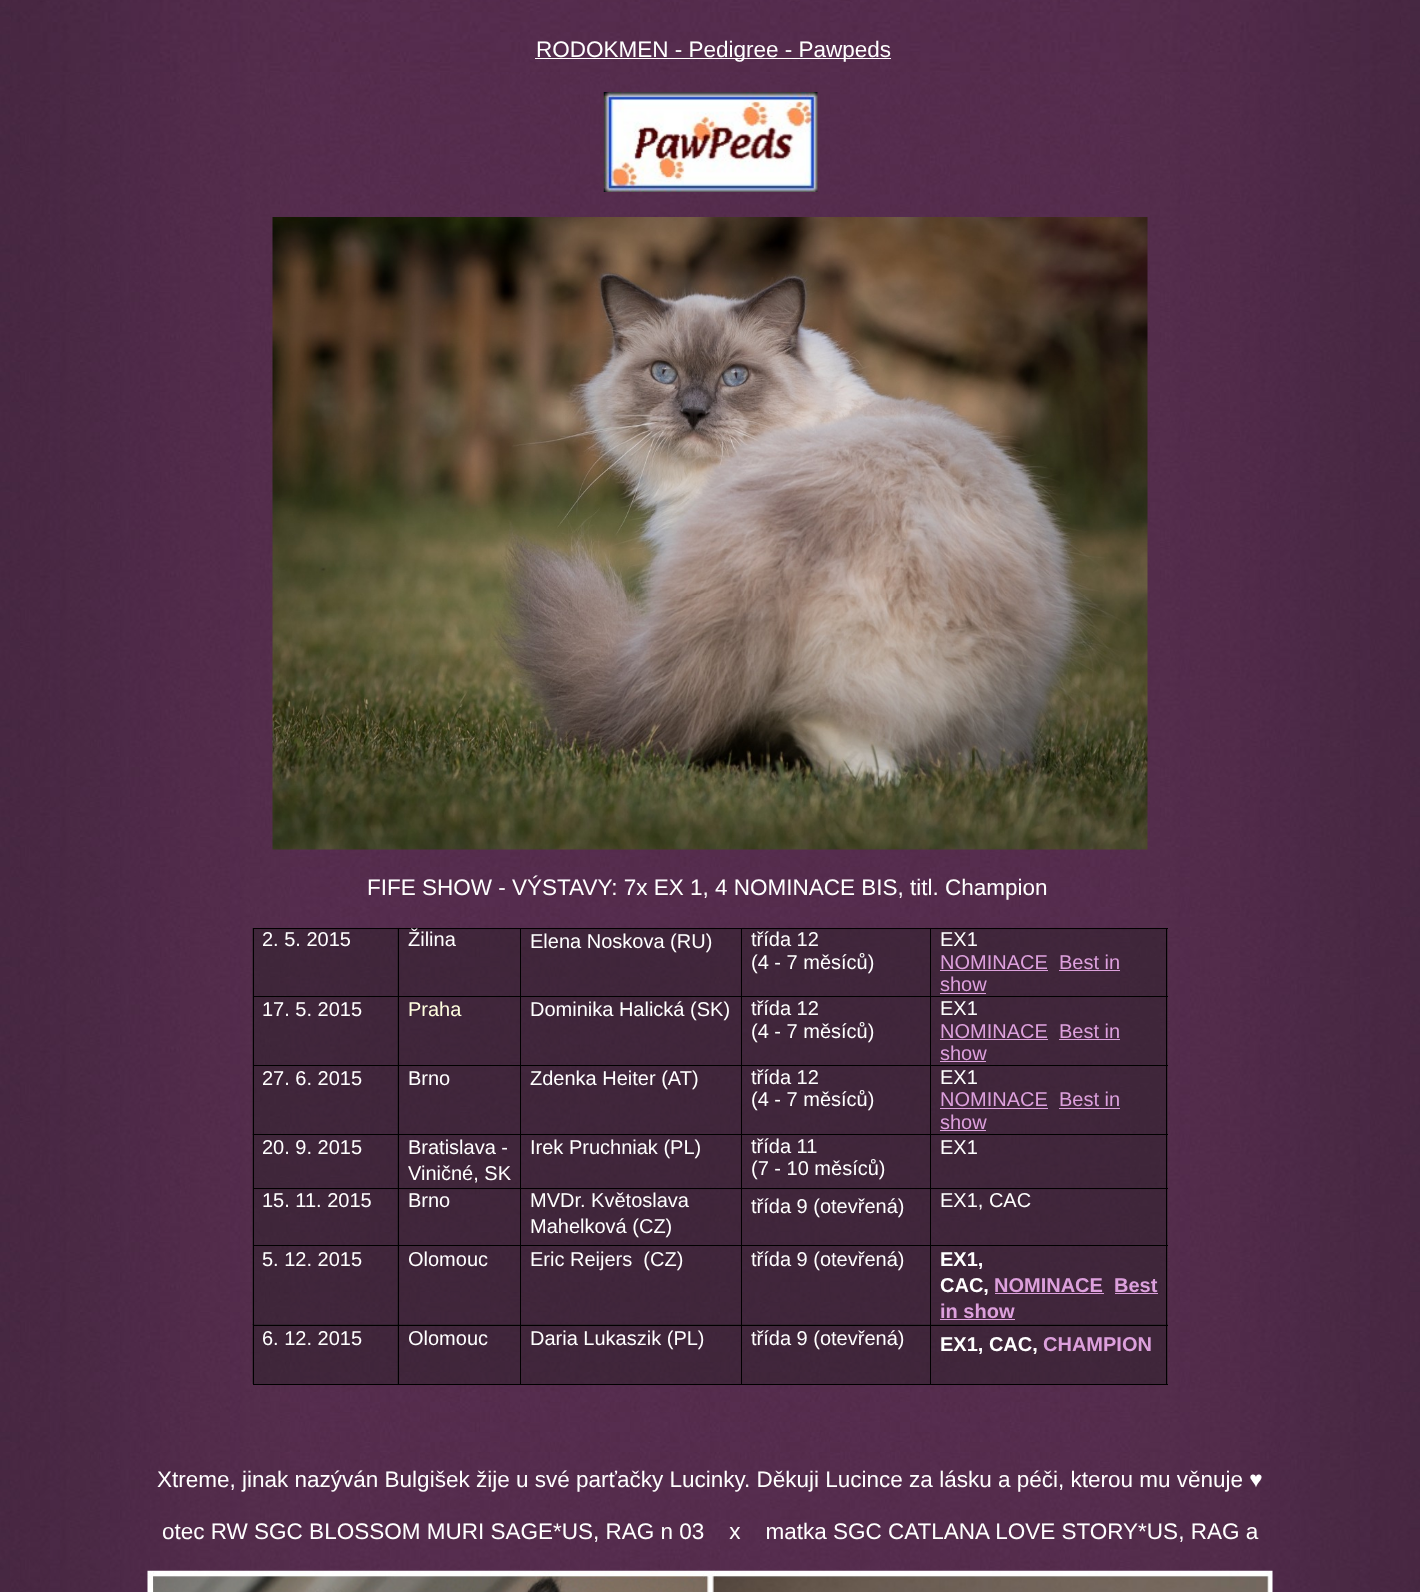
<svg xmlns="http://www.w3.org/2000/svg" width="1420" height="1592">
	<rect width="100%" height="100%" fill="#FFFFFF" />
	<image x="0" y="0" width="1420" height="1592" href="assets/img1.png" />
	<image x="11" y="0" width="1390" height="72" href="assets/img2.png" />
	<rect x="535" y="58" width="356" height="1" fill="#FFFFFF" />
	<text x="536" y="57" font-family="Liberation Sans" font-size="22.5" fill="#FFFFFF">RODOKMEN - Pedigree - Pawpeds</text>
	<image x="603" y="92" width="215" height="100" href="assets/img3.png" />
	<image x="272" y="217" width="876" height="633" href="assets/img4.png" />
	<text x="367" y="895" font-family="Liberation Sans" font-size="22.5" fill="#FFFFFF">FIFE SHOW - VÝSTAVY: 7x EX 1, 4 NOMINACE BIS, titl. Champion</text>
	<rect x="252" y="928" width="146" height="69" fill="#1C1C1C" fill-opacity="0.36" />
	<rect x="397" y="929" width="123" height="67" fill="#1C1C1C" fill-opacity="0.36" />
	<rect x="253" y="928" width="915" height="1" fill="#000000" />
	<rect x="252" y="997" width="146" height="69" fill="#1C1C1C" fill-opacity="0.36" />
	<rect x="397" y="997" width="123" height="68" fill="#1C1C1C" fill-opacity="0.36" />
	<rect x="253" y="996" width="915" height="1" fill="#000000" />
	<rect x="252" y="1066" width="146" height="69" fill="#1C1C1C" fill-opacity="0.36" />
	<rect x="397" y="1066" width="123" height="68" fill="#1C1C1C" fill-opacity="0.36" />
	<rect x="253" y="1065" width="915" height="1" fill="#000000" />
	<rect x="252" y="1134" width="146" height="53" fill="#1C1C1C" fill-opacity="0.36" />
	<rect x="397" y="1135" width="123" height="52" fill="#1C1C1C" fill-opacity="0.36" />
	<rect x="253" y="1134" width="915" height="1" fill="#000000" />
	<rect x="252" y="1187" width="146" height="59" fill="#1C1C1C" fill-opacity="0.36" />
	<rect x="397" y="1187" width="123" height="58" fill="#1C1C1C" fill-opacity="0.36" />
	<rect x="521" y="1187" width="220" height="58" fill="#1C1C1C" fill-opacity="0.36" />
	<rect x="742" y="1187" width="188" height="58" fill="#1C1C1C" fill-opacity="0.36" />
	<rect x="931" y="1187" width="237" height="58" fill="#1C1C1C" fill-opacity="0.36" />
	<rect x="253" y="1188" width="915" height="1" fill="#000000" />
	<rect x="252" y="1246" width="146" height="79" fill="#1C1C1C" fill-opacity="0.36" />
	<rect x="397" y="1246" width="123" height="79" fill="#1C1C1C" fill-opacity="0.36" />
	<rect x="253" y="1245" width="915" height="1" fill="#000000" />
	<rect x="252" y="1324" width="146" height="60" fill="#1C1C1C" fill-opacity="0.36" />
	<rect x="397" y="1324" width="123" height="60" fill="#1C1C1C" fill-opacity="0.36" />
	<rect x="521" y="1246" width="220" height="79" fill="#1C1C1C" fill-opacity="0.36" />
	<rect x="521" y="1324" width="220" height="60" fill="#1C1C1C" fill-opacity="0.36" />
	<rect x="742" y="1246" width="188" height="79" fill="#1C1C1C" fill-opacity="0.36" />
	<rect x="742" y="1324" width="188" height="60" fill="#1C1C1C" fill-opacity="0.36" />
	<rect x="931" y="1246" width="237" height="79" fill="#1C1C1C" fill-opacity="0.36" />
	<rect x="931" y="1324" width="237" height="60" fill="#1C1C1C" fill-opacity="0.36" />
	<rect x="253" y="1325" width="915" height="1" fill="#000000" />
	<rect x="1166" y="1325" width="1" height="60" fill="#000000" />
	<rect x="930" y="1384" width="238" height="1" fill="#000000" />
	<rect x="930" y="1325" width="1" height="60" fill="#000000" />
	<rect x="741" y="1384" width="190" height="1" fill="#000000" />
	<rect x="741" y="1325" width="1" height="60" fill="#000000" />
	<rect x="520" y="1384" width="223" height="1" fill="#000000" />
	<rect x="520" y="1325" width="1" height="60" fill="#000000" />
	<rect x="398" y="1384" width="123" height="1" fill="#000000" />
	<rect x="398" y="1325" width="1" height="60" fill="#000000" />
	<rect x="398" y="1245" width="1" height="81" fill="#000000" />
	<rect x="398" y="1188" width="1" height="58" fill="#000000" />
	<rect x="398" y="1134" width="1" height="55" fill="#000000" />
	<rect x="398" y="1065" width="1" height="70" fill="#000000" />
	<rect x="398" y="996" width="1" height="70" fill="#000000" />
	<rect x="398" y="928" width="1" height="70" fill="#000000" />
	<rect x="253" y="1384" width="146" height="1" fill="#000000" />
	<rect x="253" y="1325" width="1" height="60" fill="#000000" />
	<rect x="253" y="1245" width="1" height="81" fill="#000000" />
	<rect x="253" y="1188" width="1" height="58" fill="#000000" />
	<rect x="253" y="1134" width="1" height="55" fill="#000000" />
	<rect x="253" y="1065" width="1" height="70" fill="#000000" />
	<rect x="253" y="996" width="1" height="70" fill="#000000" />
	<rect x="253" y="928" width="1" height="70" fill="#000000" />
	<text x="262" y="946" font-family="Liberation Sans" font-size="20" fill="#FFFFFF">2. 5. 2015</text>
	<rect x="520" y="1245" width="1" height="81" fill="#000000" />
	<rect x="520" y="1188" width="1" height="58" fill="#000000" />
	<rect x="520" y="1134" width="1" height="55" fill="#000000" />
	<rect x="520" y="1065" width="1" height="70" fill="#000000" />
	<rect x="520" y="996" width="1" height="70" fill="#000000" />
	<rect x="520" y="928" width="1" height="70" fill="#000000" />
	<text x="408" y="946" font-family="Liberation Sans" font-size="20" fill="#FFFFFF">Žilina</text>
	<rect x="521" y="929" width="220" height="67" fill="#1C1C1C" fill-opacity="0.36" />
	<rect x="741" y="1245" width="1" height="81" fill="#000000" />
	<rect x="741" y="1188" width="1" height="58" fill="#000000" />
	<rect x="741" y="1134" width="1" height="55" fill="#000000" />
	<rect x="741" y="1065" width="1" height="70" fill="#000000" />
	<rect x="741" y="996" width="1" height="70" fill="#000000" />
	<rect x="741" y="928" width="1" height="70" fill="#000000" />
	<text x="530" y="948" font-family="Liberation Sans" font-size="20" fill="#FFFFFF">Elena Noskova (RU)</text>
	<rect x="742" y="929" width="188" height="67" fill="#1C1C1C" fill-opacity="0.36" />
	<rect x="930" y="1245" width="1" height="81" fill="#000000" />
	<rect x="930" y="1188" width="1" height="58" fill="#000000" />
	<rect x="930" y="1134" width="1" height="55" fill="#000000" />
	<rect x="930" y="1065" width="1" height="70" fill="#000000" />
	<rect x="930" y="996" width="1" height="70" fill="#000000" />
	<rect x="930" y="928" width="1" height="70" fill="#000000" />
	<g font-family="Liberation Sans" font-size="20" fill="#FFFFFF">
		<text x="751" y="946">třída 12</text>
		<text x="751" y="969">(4 - 7 měsíců)</text>
	</g>
	<rect x="931" y="929" width="237" height="67" fill="#1C1C1C" fill-opacity="0.36" />
	<rect x="931" y="997" width="237" height="68" fill="#1C1C1C" fill-opacity="0.36" />
	<rect x="931" y="1066" width="237" height="68" fill="#1C1C1C" fill-opacity="0.36" />
	<rect x="931" y="1135" width="237" height="52" fill="#1C1C1C" fill-opacity="0.36" />
	<rect x="1166" y="1245" width="1" height="81" fill="#000000" />
	<rect x="1166" y="1188" width="1" height="58" fill="#000000" />
	<rect x="1166" y="1134" width="1" height="55" fill="#000000" />
	<rect x="1166" y="1065" width="1" height="70" fill="#000000" />
	<rect x="1166" y="996" width="1" height="70" fill="#000000" />
	<rect x="1166" y="928" width="1" height="70" fill="#000000" />
	<text x="940" y="946" font-family="Liberation Sans" font-size="20" fill="#FFFFFF">EX1</text>
	<text x="940" y="969" font-family="Liberation Sans" font-size="20" fill="#DDA0DD">NOMINACE</text>
	<rect x="940" y="970" width="108" height="1" fill="#DDA0DD" />
	<text x="1059" y="969" font-family="Liberation Sans" font-size="20" fill="#DDA0DD">Best in</text>
	<rect x="1059" y="970" width="61" height="1" fill="#DDA0DD" />
	<text x="940" y="991" font-family="Liberation Sans" font-size="20" fill="#DDA0DD">show</text>
	<rect x="940" y="993" width="46" height="1" fill="#DDA0DD" />
	<text x="262" y="1016" font-family="Liberation Sans" font-size="20" fill="#FFFFFF">17. 5. 2015</text>
	<text x="408" y="1016" font-family="Liberation Sans" font-size="20" fill="#FFFFE0">Praha</text>
	<rect x="521" y="997" width="220" height="68" fill="#1C1C1C" fill-opacity="0.36" />
	<text x="530" y="1016" font-family="Liberation Sans" font-size="20" fill="#FFFFFF">Dominika Halická (SK)</text>
	<rect x="742" y="997" width="188" height="68" fill="#1C1C1C" fill-opacity="0.36" />
	<g font-family="Liberation Sans" font-size="20" fill="#FFFFFF">
		<text x="751" y="1015">třída 12</text>
		<text x="751" y="1038">(4 - 7 měsíců)</text>
		<text x="940" y="1015">EX1</text>
	</g>
	<text x="940" y="1038" font-family="Liberation Sans" font-size="20" fill="#DDA0DD">NOMINACE</text>
	<rect x="940" y="1039" width="108" height="1" fill="#DDA0DD" />
	<text x="1059" y="1038" font-family="Liberation Sans" font-size="20" fill="#DDA0DD">Best in</text>
	<rect x="1059" y="1039" width="61" height="1" fill="#DDA0DD" />
	<text x="940" y="1060" font-family="Liberation Sans" font-size="20" fill="#DDA0DD">show</text>
	<rect x="940" y="1061" width="46" height="1" fill="#DDA0DD" />
	<g font-family="Liberation Sans" font-size="20" fill="#FFFFFF">
		<text x="262" y="1085">27. 6. 2015</text>
		<text x="408" y="1085">Brno</text>
	</g>
	<rect x="521" y="1066" width="220" height="68" fill="#1C1C1C" fill-opacity="0.36" />
	<text x="530" y="1085" font-family="Liberation Sans" font-size="20" fill="#FFFFFF">Zdenka Heiter (AT)</text>
	<rect x="742" y="1066" width="188" height="68" fill="#1C1C1C" fill-opacity="0.36" />
	<g font-family="Liberation Sans" font-size="20" fill="#FFFFFF">
		<text x="751" y="1084">třída 12</text>
		<text x="751" y="1106">(4 - 7 měsíců)</text>
		<text x="940" y="1084">EX1</text>
	</g>
	<text x="940" y="1106" font-family="Liberation Sans" font-size="20" fill="#DDA0DD">NOMINACE</text>
	<rect x="940" y="1108" width="108" height="1" fill="#DDA0DD" />
	<text x="1059" y="1106" font-family="Liberation Sans" font-size="20" fill="#DDA0DD">Best in</text>
	<rect x="1059" y="1108" width="61" height="1" fill="#DDA0DD" />
	<text x="940" y="1129" font-family="Liberation Sans" font-size="20" fill="#DDA0DD">show</text>
	<rect x="940" y="1130" width="46" height="1" fill="#DDA0DD" />
	<g font-family="Liberation Sans" font-size="20" fill="#FFFFFF">
		<text x="262" y="1154">20. 9. 2015</text>
		<text x="408" y="1154">Bratislava -</text>
		<text x="408" y="1180">Viničné, SK</text>
	</g>
	<rect x="521" y="1135" width="220" height="52" fill="#1C1C1C" fill-opacity="0.36" />
	<text x="530" y="1154" font-family="Liberation Sans" font-size="20" fill="#FFFFFF">Irek Pruchniak (PL)</text>
	<rect x="742" y="1135" width="188" height="52" fill="#1C1C1C" fill-opacity="0.36" />
	<g font-family="Liberation Sans" font-size="20" fill="#FFFFFF">
		<text x="751" y="1153">třída 11</text>
		<text x="751" y="1175">(7 - 10 měsíců)</text>
		<text x="940" y="1154">EX1</text>
		<text x="262" y="1207">15. 11. 2015</text>
		<text x="408" y="1207">Brno</text>
		<text x="530" y="1207">MVDr. Květoslava</text>
		<text x="530" y="1233">Mahelková (CZ)</text>
		<text x="751" y="1213">třída 9 (otevřená)</text>
		<text x="940" y="1207">EX1, CAC</text>
		<text x="262" y="1266">5. 12. 2015</text>
		<text x="408" y="1266">Olomouc</text>
		<text x="530" y="1266" xml:space="preserve">Eric Reijers  (CZ)</text>
		<text x="751" y="1266">třída 9 (otevřená)</text>
	</g>
	<g font-family="Liberation Sans" font-size="20" font-weight="700" fill="#FFFFFF">
		<text x="940" y="1266">EX1,</text>
		<text x="940" y="1292">CAC,</text>
	</g>
	<text x="994" y="1292" font-family="Liberation Sans" font-size="20" font-weight="700" fill="#DDA0DD">NOMINACE</text>
	<rect x="995" y="1293" width="109" height="1" fill="#DDA0DD" />
	<text x="1114" y="1292" font-family="Liberation Sans" font-size="20" font-weight="700" fill="#DDA0DD">Best</text>
	<rect x="1115" y="1293" width="43" height="1" fill="#DDA0DD" />
	<text x="940" y="1318" font-family="Liberation Sans" font-size="20" font-weight="700" fill="#DDA0DD">in show</text>
	<rect x="940" y="1319" width="75" height="1" fill="#DDA0DD" />
	<g font-family="Liberation Sans" font-size="20" fill="#FFFFFF">
		<text x="262" y="1345">6. 12. 2015</text>
		<text x="408" y="1345">Olomouc</text>
		<text x="530" y="1345">Daria Lukaszik (PL)</text>
		<text x="751" y="1345">třída 9 (otevřená)</text>
	</g>
	<text x="940" y="1351" font-family="Liberation Sans" font-size="20" font-weight="700" fill="#FFFFFF">EX1, CAC,</text>
	<text x="1043" y="1351" font-family="Liberation Sans" font-size="20" font-weight="700" fill="#DDA0DD">CHAMPION</text>
	<g font-family="Liberation Sans" font-size="22.5" fill="#FFFFFF">
		<text x="157" y="1487">Xtreme, jinak nazýván Bulgišek žije u své parťačky Lucinky. Děkuji Lucince za lásku a péči, kterou mu věnuje ♥</text>
		<text x="162" y="1539" xml:space="preserve">otec RW SGC BLOSSOM MURI SAGE*US, RAG n 03    x    matka SGC CATLANA LOVE STORY*US, RAG a</text>
	</g>
	<image x="147" y="1570" width="1126" height="22" href="assets/img5.png" />
</svg>
